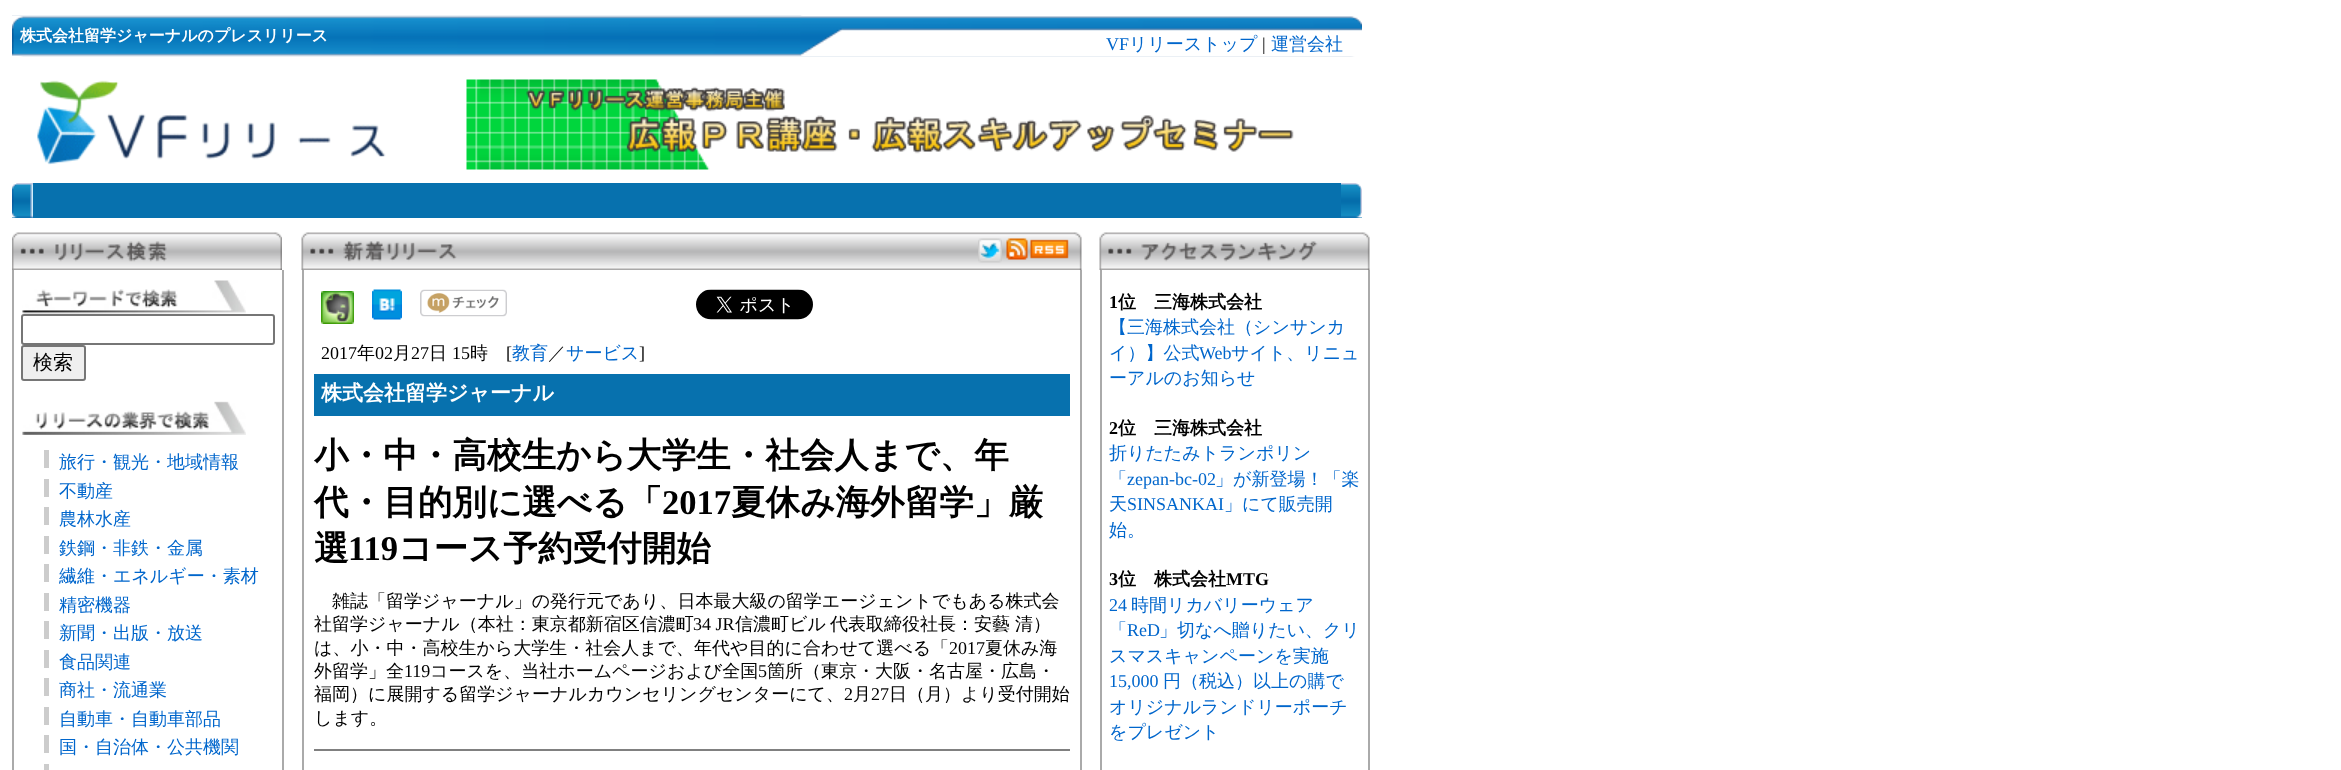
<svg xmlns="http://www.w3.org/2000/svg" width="2341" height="770">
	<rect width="100%" height="100%" fill="#FFFFFF" />
	<image x="12" y="15" width="1350" height="42" href="assets/img1.png" />
	<text x="20" y="41" font-family="WenQuanYi Zen Hei" font-size="16" font-weight="700" fill="#FFFFFF">株式会社留学ジャーナルのプレスリリース</text>
	<text x="1106" y="50" font-family="Liberation Serif" font-size="18" fill="#0066CC">VF</text>
	<text x="1129" y="50" font-family="WenQuanYi Zen Hei" font-size="18" font-weight="500" fill="#0066CC">リリーストップ</text>
	<text x="1262" y="50" font-family="Liberation Serif" font-size="18" fill="#000000">|</text>
	<text x="1271" y="50" font-family="WenQuanYi Zen Hei" font-size="18" font-weight="500" fill="#0066CC">運営会社</text>
	<image x="37" y="80" width="349" height="85" href="assets/img2.png" />
	<image x="466" y="79" width="828" height="91" href="assets/img3.png" />
	<rect x="12" y="183" width="1350" height="35" fill="#0771AE" />
	<image x="12" y="183" width="21" height="35" href="assets/img4.png" />
	<image x="1341" y="183" width="21" height="35" href="assets/img5.png" />
	<image x="12" y="232" width="270" height="38" href="assets/img6.png" />
	<rect x="282" y="270" width="2" height="500" fill="#AAAAAA" />
	<rect x="12" y="270" width="2" height="500" fill="#AAAAAA" />
	<image x="22" y="280" width="224" height="34" href="assets/img7.png" />
	<rect x="22" y="315" width="252" height="29" rx="2" fill="none" stroke="#767676" stroke-width="2" />
	<rect x="22" y="346" width="63" height="34" rx="2" fill="#EFEFEF" stroke="#767676" stroke-width="2" />
	<text x="33" y="369" font-family="WenQuanYi Zen Hei" font-size="20" font-weight="500" fill="#000000">検索</text>
	<image x="22" y="401" width="224" height="34" href="assets/img8.png" />
	<rect x="44" y="450" width="5" height="18" fill="#CCCCCC" />
	<text x="59" y="468" font-family="WenQuanYi Zen Hei" font-size="18" font-weight="500" fill="#0066CC">旅行・観光・地域情報</text>
	<rect x="44" y="479" width="5" height="18" fill="#CCCCCC" />
	<text x="59" y="497" font-family="WenQuanYi Zen Hei" font-size="18" font-weight="500" fill="#0066CC">不動産</text>
	<rect x="44" y="507" width="5" height="18" fill="#CCCCCC" />
	<text x="59" y="525" font-family="WenQuanYi Zen Hei" font-size="18" font-weight="500" fill="#0066CC">農林水産</text>
	<rect x="44" y="536" width="5" height="18" fill="#CCCCCC" />
	<text x="59" y="554" font-family="WenQuanYi Zen Hei" font-size="18" font-weight="500" fill="#0066CC">鉄鋼・非鉄・金属</text>
	<rect x="44" y="564" width="5" height="18" fill="#CCCCCC" />
	<text x="59" y="582" font-family="WenQuanYi Zen Hei" font-size="18" font-weight="500" fill="#0066CC">繊維・エネルギー・素材</text>
	<rect x="44" y="593" width="5" height="18" fill="#CCCCCC" />
	<text x="59" y="611" font-family="WenQuanYi Zen Hei" font-size="18" font-weight="500" fill="#0066CC">精密機器</text>
	<rect x="44" y="621" width="5" height="18" fill="#CCCCCC" />
	<text x="59" y="639" font-family="WenQuanYi Zen Hei" font-size="18" font-weight="500" fill="#0066CC">新聞・出版・放送</text>
	<rect x="44" y="650" width="5" height="18" fill="#CCCCCC" />
	<text x="59" y="668" font-family="WenQuanYi Zen Hei" font-size="18" font-weight="500" fill="#0066CC">食品関連</text>
	<rect x="44" y="678" width="5" height="18" fill="#CCCCCC" />
	<text x="59" y="696" font-family="WenQuanYi Zen Hei" font-size="18" font-weight="500" fill="#0066CC">商社・流通業</text>
	<rect x="44" y="707" width="5" height="18" fill="#CCCCCC" />
	<text x="59" y="725" font-family="WenQuanYi Zen Hei" font-size="18" font-weight="500" fill="#0066CC">自動車・自動車部品</text>
	<rect x="44" y="735" width="5" height="18" fill="#CCCCCC" />
	<text x="59" y="753" font-family="WenQuanYi Zen Hei" font-size="18" font-weight="500" fill="#0066CC">国・自治体・公共機関</text>
	<rect x="44" y="764" width="5" height="6" fill="#CCCCCC" />
	<image x="301" y="232" width="781" height="38" href="assets/img9.png" />
	<image x="978" y="238" width="24" height="25" href="assets/img10.png" />
	<image x="1006" y="238" width="63" height="22" href="assets/img11.png" />
	<rect x="1080" y="270" width="2" height="500" fill="#AAAAAA" />
	<rect x="302" y="270" width="2" height="500" fill="#AAAAAA" />
	<image x="321" y="291" width="33" height="33" href="assets/img12.png" />
	<image x="372" y="289" width="30" height="31" href="assets/img13.png" />
	<image x="420" y="289" width="87" height="28" href="assets/img14.png" />
	<image x="696" y="289" width="117" height="31" href="assets/img15.png" />
	<text x="321" y="359" font-family="Liberation Serif" font-size="18" fill="#000000">2017</text>
	<text x="357" y="359" font-family="WenQuanYi Zen Hei" font-size="18" font-weight="500" fill="#000000">年</text>
	<text x="375" y="359" font-family="Liberation Serif" font-size="18" fill="#000000">02</text>
	<text x="393" y="359" font-family="WenQuanYi Zen Hei" font-size="18" font-weight="500" fill="#000000">月</text>
	<text x="411" y="359" font-family="Liberation Serif" font-size="18" fill="#000000">27</text>
	<text x="429" y="359" font-family="WenQuanYi Zen Hei" font-size="18" font-weight="500" fill="#000000">日</text>
	<text x="452" y="359" font-family="Liberation Serif" font-size="18" fill="#000000">15</text>
	<text x="470" y="359" font-family="WenQuanYi Zen Hei" font-size="18" font-weight="500" fill="#000000">時</text>
	<text x="506" y="359" font-family="Liberation Serif" font-size="18" fill="#000000">[</text>
	<text x="512" y="359" font-family="WenQuanYi Zen Hei" font-size="18" font-weight="500" fill="#0066CC">教育</text>
	<text x="548" y="359" font-family="WenQuanYi Zen Hei" font-size="18" font-weight="500" fill="#000000">／</text>
	<text x="566" y="359" font-family="WenQuanYi Zen Hei" font-size="18" font-weight="500" fill="#0066CC">サービス</text>
	<text x="639" y="359" font-family="Liberation Serif" font-size="18" fill="#000000">]</text>
	<rect x="314" y="374" width="756" height="42" fill="#0771AE" />
	<text x="321" y="400" font-family="WenQuanYi Zen Hei" font-size="21" font-weight="700" fill="#FFFFFF">株式会社留学ジャーナル</text>
	<g font-family="WenQuanYi Zen Hei" font-size="34.6" font-weight="700" fill="#000000">
		<text x="314" y="467">小・中・高校生から大学生・社会人まで、年</text>
		<text x="314" y="514">代・目的別に選べる「</text>
	</g>
	<text x="662" y="514" font-family="Liberation Serif" font-size="34.6" font-weight="700" fill="#000000">2017</text>
	<g font-family="WenQuanYi Zen Hei" font-size="34.6" font-weight="700" fill="#000000">
		<text x="731" y="514">夏休み海外留学」厳</text>
		<text x="314" y="560">選</text>
	</g>
	<text x="348" y="560" font-family="Liberation Serif" font-size="34.6" font-weight="700" fill="#000000">119</text>
	<text x="398" y="560" font-family="WenQuanYi Zen Hei" font-size="34.6" font-weight="700" fill="#000000">コース予約受付開始</text>
	<g font-family="WenQuanYi Zen Hei" font-size="18" font-weight="500" fill="#000000">
		<text x="332" y="607">雑誌「留学ジャーナル」の発行元であり、日本最大級の留学エージェントでもある株式会</text>
		<text x="314" y="630">社留学ジャーナル（本社：東京都新宿区信濃町</text>
	</g>
	<text x="693" y="630" font-family="Liberation Serif" font-size="18" fill="#000000">34 JR</text>
	<g font-family="WenQuanYi Zen Hei" font-size="18" font-weight="500" fill="#000000">
		<text x="735" y="630">信濃町ビル</text>
		<text x="830" y="630">代表取締役社長：安藝</text>
		<text x="1015" y="630">清）</text>
		<text x="314" y="654">は、小・中・高校生から大学生・社会人まで、年代や目的に合わせて選べる「</text>
	</g>
	<text x="949" y="654" font-family="Liberation Serif" font-size="18" fill="#000000">2017</text>
	<g font-family="WenQuanYi Zen Hei" font-size="18" font-weight="500" fill="#000000">
		<text x="985" y="654">夏休み海</text>
		<text x="314" y="677">外留学」全</text>
	</g>
	<text x="404" y="677" font-family="Liberation Serif" font-size="18" fill="#000000">119</text>
	<text x="430" y="677" font-family="WenQuanYi Zen Hei" font-size="18" font-weight="500" fill="#000000">コースを、当社ホームページおよび全国</text>
	<text x="758" y="677" font-family="Liberation Serif" font-size="18" fill="#000000">5</text>
	<g font-family="WenQuanYi Zen Hei" font-size="18" font-weight="500" fill="#000000">
		<text x="767" y="677">箇所（東京・大阪・名古屋・広島・</text>
		<text x="314" y="700">福岡）に展開する留学ジャーナルカウンセリングセンターにて、</text>
	</g>
	<text x="844" y="700" font-family="Liberation Serif" font-size="18" fill="#000000">2</text>
	<text x="853" y="700" font-family="WenQuanYi Zen Hei" font-size="18" font-weight="500" fill="#000000">月</text>
	<text x="871" y="700" font-family="Liberation Serif" font-size="18" fill="#000000">27</text>
	<g font-family="WenQuanYi Zen Hei" font-size="18" font-weight="500" fill="#000000">
		<text x="889" y="700">日（月）より受付開始</text>
		<text x="314" y="724">します。</text>
	</g>
	<rect x="314" y="749" width="756" height="2" fill="#808080" />
	<image x="1099" y="232" width="271" height="38" href="assets/img16.png" />
	<rect x="1368" y="270" width="2" height="500" fill="#AAAAAA" />
	<rect x="1100" y="270" width="2" height="500" fill="#AAAAAA" />
	<text x="1109" y="308" font-family="Liberation Serif" font-size="18" font-weight="700" fill="#000000">1</text>
	<text x="1118" y="308" font-family="WenQuanYi Zen Hei" font-size="18" font-weight="700" fill="#000000">位　三海株式会社</text>
	<g font-family="WenQuanYi Zen Hei" font-size="18" font-weight="500" fill="#0066CC">
		<text x="1109" y="333">【三海株式会社（シンサンカ</text>
		<text x="1109" y="359">イ）】公式</text>
	</g>
	<text x="1199" y="359" font-family="Liberation Serif" font-size="18" fill="#0066CC">Web</text>
	<g font-family="WenQuanYi Zen Hei" font-size="18" font-weight="500" fill="#0066CC">
		<text x="1231" y="359">サイト、リニュ</text>
		<text x="1109" y="384">ーアルのお知らせ</text>
	</g>
	<text x="1109" y="434" font-family="Liberation Serif" font-size="18" font-weight="700" fill="#000000">2</text>
	<text x="1118" y="434" font-family="WenQuanYi Zen Hei" font-size="18" font-weight="700" fill="#000000">位　三海株式会社</text>
	<g font-family="WenQuanYi Zen Hei" font-size="18" font-weight="500" fill="#0066CC">
		<text x="1109" y="459">折りたたみトランポリン</text>
		<text x="1109" y="485">「</text>
	</g>
	<text x="1127" y="485" font-family="Liberation Serif" font-size="18" fill="#0066CC">zepan-bc-02</text>
	<g font-family="WenQuanYi Zen Hei" font-size="18" font-weight="500" fill="#0066CC">
		<text x="1215" y="485">」が新登場！「楽</text>
		<text x="1109" y="510">天</text>
	</g>
	<text x="1127" y="510" font-family="Liberation Serif" font-size="18" fill="#0066CC">SINSANKAI</text>
	<g font-family="WenQuanYi Zen Hei" font-size="18" font-weight="500" fill="#0066CC">
		<text x="1224" y="510">」にて販売開</text>
		<text x="1109" y="536">始。</text>
	</g>
	<text x="1109" y="585" font-family="Liberation Serif" font-size="18" font-weight="700" fill="#000000">3</text>
	<text x="1118" y="585" font-family="WenQuanYi Zen Hei" font-size="18" font-weight="700" fill="#000000">位　株式会社</text>
	<text x="1226" y="585" font-family="Liberation Serif" font-size="18" font-weight="700" fill="#000000">MTG</text>
	<text x="1109" y="611" font-family="Liberation Serif" font-size="18" fill="#0066CC">24</text>
	<g font-family="WenQuanYi Zen Hei" font-size="18" font-weight="500" fill="#0066CC">
		<text x="1131" y="611">時間リカバリーウェア</text>
		<text x="1109" y="636">「</text>
	</g>
	<text x="1127" y="636" font-family="Liberation Serif" font-size="18" fill="#0066CC">ReD</text>
	<g font-family="WenQuanYi Zen Hei" font-size="18" font-weight="500" fill="#0066CC">
		<text x="1159" y="636">」切なへ贈りたい、クリ</text>
		<text x="1109" y="662">スマスキャンペーンを実施</text>
	</g>
	<text x="1109" y="687" font-family="Liberation Serif" font-size="18" fill="#0066CC">15,000</text>
	<g font-family="WenQuanYi Zen Hei" font-size="18" font-weight="500" fill="#0066CC">
		<text x="1163" y="687">円（税込）以上の購で</text>
		<text x="1109" y="713">オリジナルランドリーポーチ</text>
		<text x="1109" y="738">をプレゼント</text>
	</g>
</svg>
